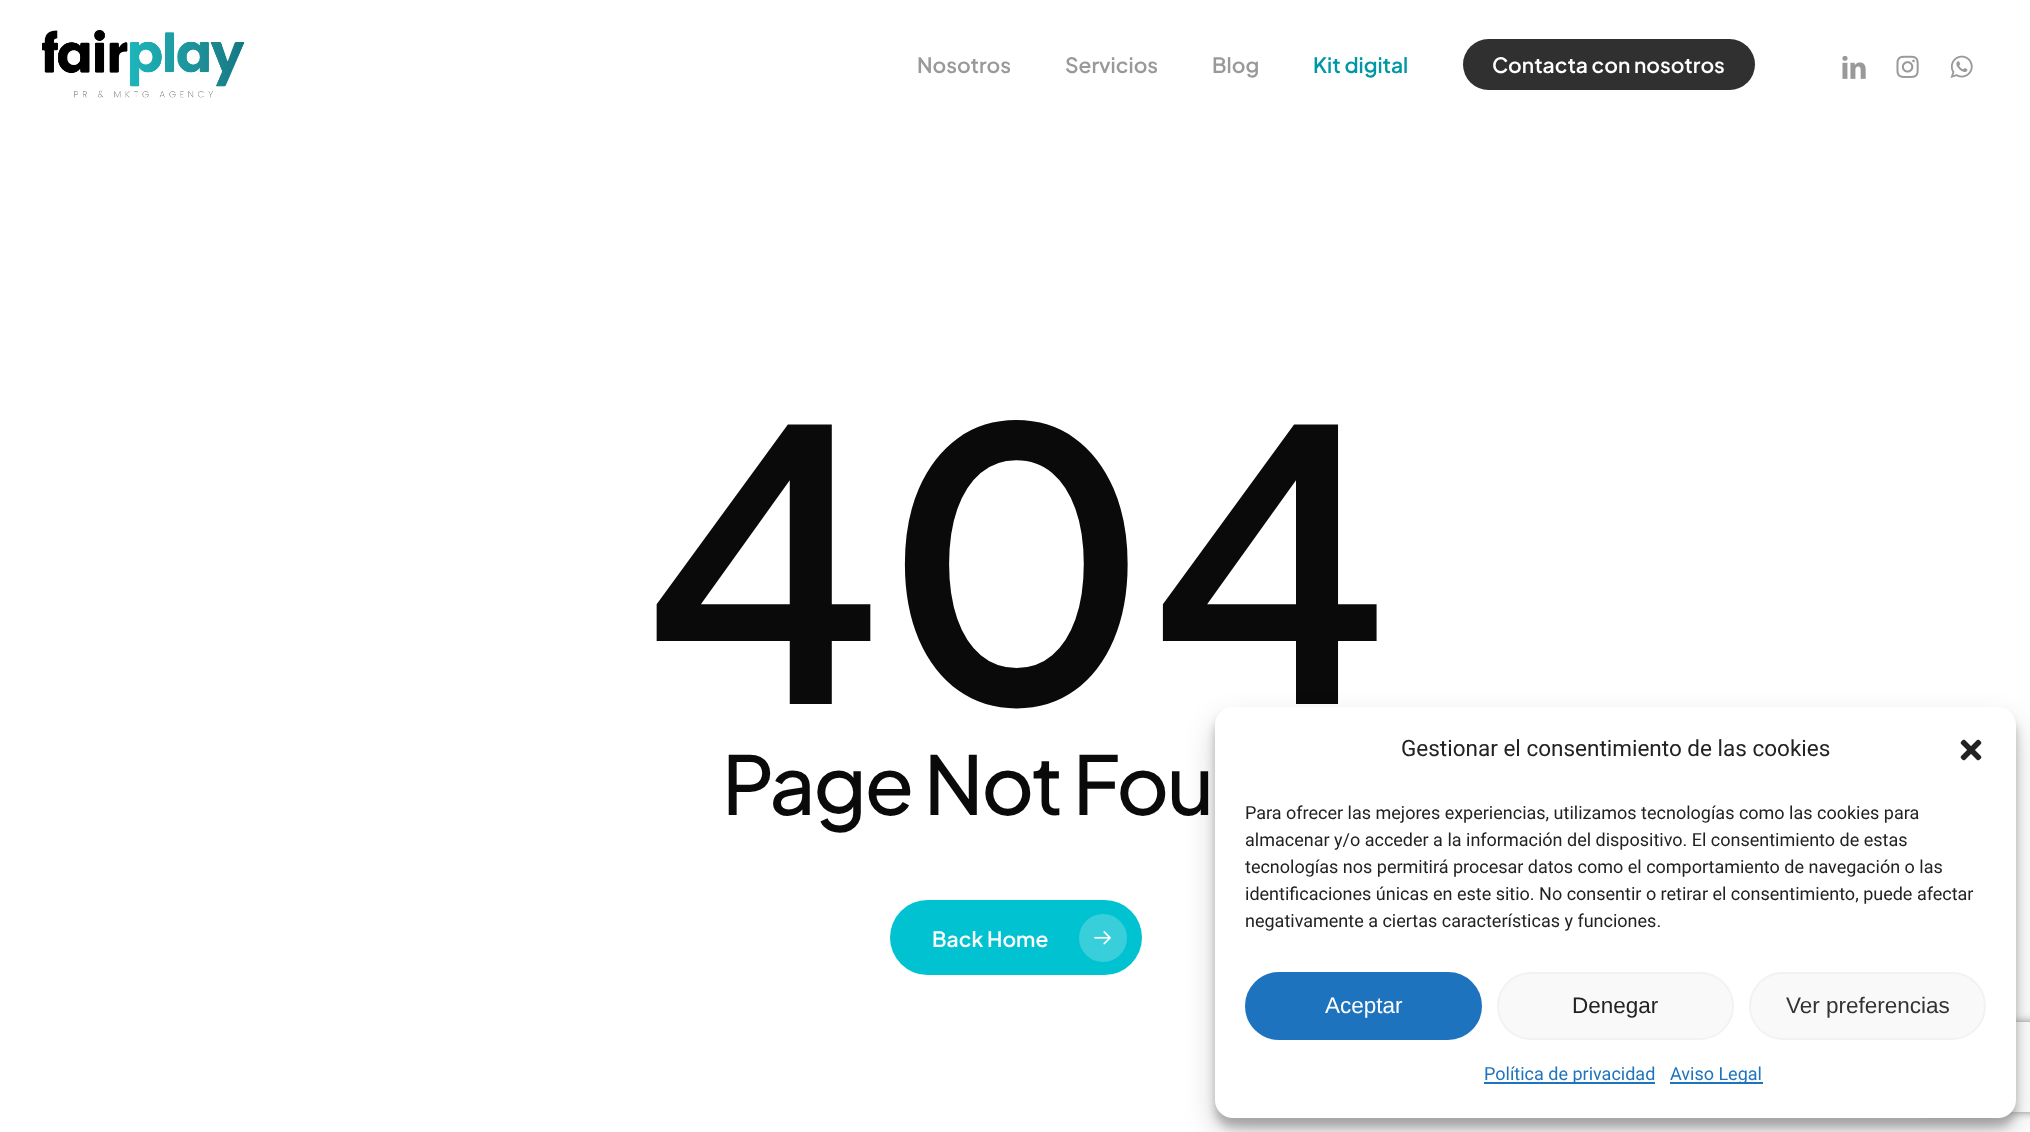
<svg xmlns="http://www.w3.org/2000/svg" width="2030" height="1132">
	<defs>
		<clipPath id="clip1"><path d="M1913 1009H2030V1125H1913ZM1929 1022H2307C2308.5 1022 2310 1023.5 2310 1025V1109C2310 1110.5 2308.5 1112 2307 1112H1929C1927.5 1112 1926 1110.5 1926 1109V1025C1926 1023.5 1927.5 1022 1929 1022Z" clip-rule="evenodd" /></clipPath>
	</defs>
	<rect width="100%" height="100%" fill="#FFFFFF" />
	<image x="42" y="30" width="203" height="68" href="assets/img1.png" />
	<g font-family="Plus Jakarta Sans" font-size="21" font-weight="600" fill="#999999">
		<text x="917" y="73">Nosotros</text>
		<text x="1065" y="73">Servicios</text>
		<text x="1212" y="73">Blog</text>
	</g>
	<text x="1313" y="73" font-family="Plus Jakarta Sans" font-size="21" font-weight="600" fill="#0097A5">Kit digital</text>
	<rect x="1463" y="39" width="292" height="51" rx="25.5" fill="#303030" />
	<text x="1492" y="73" font-family="Plus Jakarta Sans" font-size="21" font-weight="600" fill="#FFFFFF">Contacta con nosotros</text>
	<image x="1842" y="55" width="24" height="24" href="assets/img2.png" />
	<image x="1896" y="55" width="23" height="23" href="assets/img3.png" />
	<image x="1950" y="55" width="23" height="23" href="assets/img4.png" />
	<text x="642" y="704" font-family="Plus Jakarta Sans" font-size="375" font-weight="600" letter-spacing="-2.25" fill="#0A0A0A">404</text>
	<text x="722" y="815" font-family="Plus Jakarta Sans" font-size="81" font-weight="500" letter-spacing="-2.25" fill="#0A0A0A">Page Not Fou</text>
	<rect x="890" y="900" width="252" height="75" rx="37.5" fill="#00C2D1" />
	<text x="932" y="947" font-family="Plus Jakarta Sans" font-size="21" font-weight="600" fill="#FFFFFF">Back Home</text>
	<circle cx="1103" cy="938" r="24" fill="#38CFDB" />
	<image x="1094" y="931" width="17" height="14" href="assets/img5.png" />
	<rect x="1215" y="716" width="801" height="411" rx="18" fill="#000000" fill-opacity="0.23" filter="blur(4.5px)" />
	<rect x="1215" y="722" width="801" height="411" rx="18" fill="#000000" fill-opacity="0.19" filter="blur(15px)" />
	<g clip-path="url(#clip1)">
		<rect x="1926" y="1022" width="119" height="90" rx="3" fill="#808080" filter="blur(4px)" />
	</g>
	<rect x="1215" y="707" width="801" height="411" rx="18" fill="#FFFFFF" />
	<text x="1401" y="756" font-family="Roboto" font-size="22.5" fill="#222222">Gestionar el consentimiento de las cookies</text>
	<image x="1960" y="739" width="22" height="22" href="assets/img6.png" />
	<g font-family="Roboto" font-size="18" fill="#222222">
		<text x="1245" y="819">Para ofrecer las mejores experiencias, utilizamos tecnologías como las cookies para</text>
		<text x="1245" y="846">almacenar y/o acceder a la información del dispositivo. El consentimiento de estas</text>
		<text x="1245" y="873">tecnologías nos permitirá procesar datos como el comportamiento de navegación o las</text>
		<text x="1245" y="900">identificaciones únicas en este sitio. No consentir o retirar el consentimiento, puede afectar</text>
		<text x="1245" y="927">negativamente a ciertas características y funciones.</text>
	</g>
	<rect x="1246" y="973" width="235" height="66" rx="33" fill="#1E73BE" stroke="#1E73BE" stroke-width="2" />
	<text x="1325" y="1013" font-family="Liberation Sans" font-size="22.5" fill="#FFFFFF">Aceptar</text>
	<rect x="1498" y="973" width="235" height="66" rx="33" fill="#F9F9F9" stroke="#F2F2F2" stroke-width="2" />
	<text x="1572" y="1013" font-family="Liberation Sans" font-size="22.5" fill="#222222">Denegar</text>
	<rect x="1750" y="973" width="235" height="66" rx="33" fill="#F9F9F9" stroke="#F2F2F2" stroke-width="2" />
	<text x="1786" y="1013" font-family="Liberation Sans" font-size="22.5" fill="#333333">Ver preferencias</text>
	<rect x="1484" y="1082" width="171" height="2" fill="#1E73BE" />
	<text x="1484" y="1080" font-family="Roboto" font-size="18" fill="#1E73BE">Política de privacidad</text>
	<rect x="1670" y="1082" width="93" height="2" fill="#1E73BE" />
	<text x="1670" y="1080" font-family="Roboto" font-size="18" fill="#1E73BE">Aviso Legal</text>
</svg>
